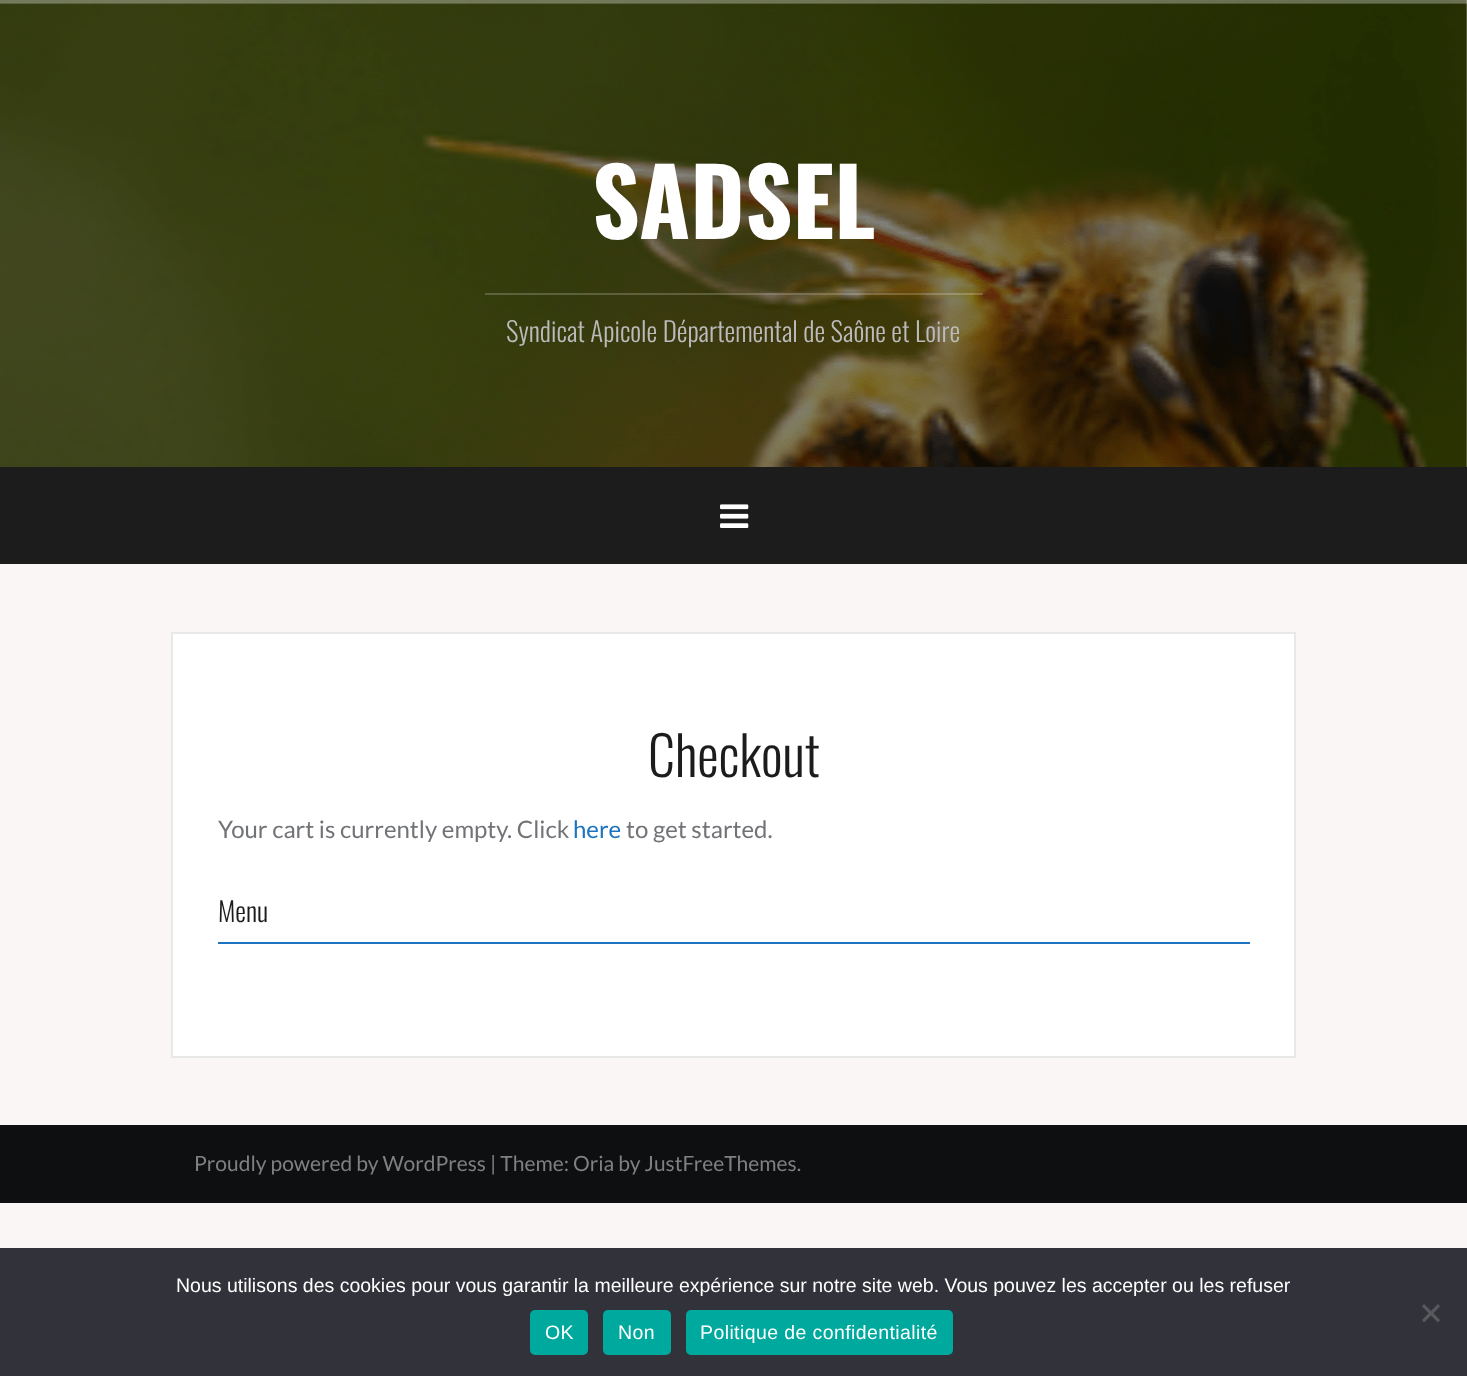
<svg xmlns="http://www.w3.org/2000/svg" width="1467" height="1376">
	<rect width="100%" height="100%" fill="#F9F6F5" />
	<image x="0" y="0" width="1467" height="467" href="assets/img1.png" />
	<rect x="0" y="0" width="1467" height="3" fill="#FFFFFF" fill-opacity="0.15" />
	<rect x="0" y="0" width="1467" height="2" fill="#FFFFFF" fill-opacity="0.2" />
	<rect x="0" y="2" width="1467" height="2" fill="#FFFFFF" fill-opacity="0.2" />
	<text x="592" y="239" font-family="Oswald" font-size="93" font-weight="700" fill="#FFFFFF">SADSEL</text>
	<rect x="485" y="293" width="498" height="2" fill="#FFFFFF" fill-opacity="0.2" />
	<text x="506" y="342" font-family="Oswald" font-size="27" font-weight="300" fill="#BBBBBB">Syndicat Apicole Départemental de Saône et Loire</text>
	<rect x="0" y="467" width="1467" height="97" fill="#1C1C1C" />
	<image x="720" y="504" width="29" height="24" href="assets/img2.png" />
	<rect x="172" y="633" width="1123" height="424" fill="#FFFFFF" stroke="#E8E8E8" stroke-width="2" />
	<text x="648" y="777" font-family="Oswald" font-size="54" font-weight="300" fill="#1C1C1C">Checkout</text>
	<text x="218" y="838" font-family="Lato" font-size="24" fill="#717376">Your cart is currently empty. Click</text>
	<text x="573" y="838" font-family="Lato" font-size="24" fill="#1E73BE">here</text>
	<text x="626" y="838" font-family="Lato" font-size="24" fill="#717376">to get started.</text>
	<rect x="218" y="942" width="1032" height="2" fill="#1E73BE" />
	<text x="218" y="922" font-family="Oswald" font-size="27" font-weight="300" fill="#1C1C1C">Menu</text>
	<rect x="0" y="1125" width="1467" height="78" fill="#0D0F10" />
	<text x="194" y="1171" font-family="Lato" font-size="21" fill="#808080">Proudly powered by WordPress | Theme: Oria by JustFreeThemes.</text>
	<rect x="0" y="1248" width="1467" height="128" fill="#32323A" />
	<text x="176" y="1292" font-family="Liberation Sans" font-size="19.5" fill="#FFFFFF">Nous utilisons des cookies pour vous garantir la meilleure expérience sur notre site web. Vous pouvez les accepter ou les refuser</text>
	<path d="M1438 1304L1440 1306.5L1424 1322.5L1422 1320Z" fill="#59595D" />
	<path d="M1422 1306.5L1424 1304L1440 1320L1438 1322.5Z" fill="#59595D" />
	<rect x="530" y="1310" width="58" height="45" rx="5" fill="#00A99D" />
	<text x="545" y="1339" font-family="Liberation Sans" font-size="19.5" letter-spacing="0.4" fill="#FFFFFF">OK</text>
	<rect x="603" y="1310" width="68" height="45" rx="5" fill="#00A99D" />
	<text x="618" y="1339" font-family="Liberation Sans" font-size="19.5" letter-spacing="0.4" fill="#FFFFFF">Non</text>
	<rect x="686" y="1310" width="267" height="45" rx="5" fill="#00A99D" />
	<text x="700" y="1339" font-family="Liberation Sans" font-size="19.5" letter-spacing="0.4" fill="#FFFFFF">Politique de confidentialité</text>
</svg>
